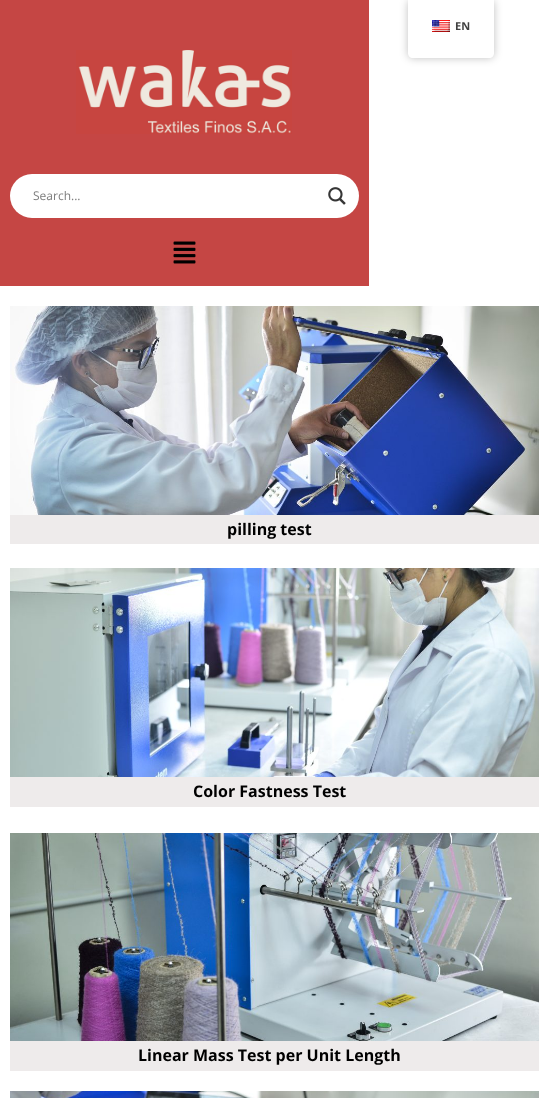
<svg xmlns="http://www.w3.org/2000/svg" width="549" height="1098">
	<rect width="100%" height="100%" fill="#FFFFFF" />
	<rect x="408" y="0" width="86" height="58" rx="5" fill="#000000" fill-opacity="0.25" filter="blur(4px)" />
	<path d="M408 0H494V53C494 56 492 58 489 58H413C410 58 408 56 408 53Z" fill="#FFFFFF" />
	<image x="432" y="20" width="18" height="12" href="assets/img1.png" />
	<text x="455" y="30" font-family="Open Sans" font-size="11" font-weight="700" fill="#404040">EN</text>
	<rect x="0" y="0" width="369" height="286" fill="#C54644" />
	<image x="76" y="50" width="216" height="84" href="assets/img2.png" />
	<rect x="10" y="174" width="349" height="44" rx="22" fill="#FFFFFF" />
	<text x="33" y="200" font-family="Open Sans" font-size="12" fill="#7D7D7D">Search...</text>
	<image x="328" y="187" width="18" height="18" href="assets/img3.png" />
	<image x="173" y="241" width="23" height="23" href="assets/img4.png" />
	<rect x="10" y="515" width="529" height="29" fill="#EEEBEB" />
	<image x="10" y="306" width="529" height="209" href="assets/img5.png" />
	<text x="227" y="535" font-family="Open Sans" font-size="16" font-weight="700" fill="#000000">pilling test</text>
	<rect x="10" y="777" width="529" height="30" fill="#EEEBEB" />
	<image x="10" y="568" width="529" height="209" href="assets/img6.png" />
	<text x="193" y="797" font-family="Open Sans" font-size="16" font-weight="700" fill="#000000">Color Fastness Test</text>
	<rect x="10" y="1041" width="529" height="30" fill="#EEEBEB" />
	<image x="10" y="833" width="529" height="208" href="assets/img7.png" />
	<text x="138" y="1061" font-family="Open Sans" font-size="16" font-weight="700" fill="#000000">Linear Mass Test per Unit Length</text>
	<image x="10" y="1091" width="529" height="7" href="assets/img8.png" />
</svg>
